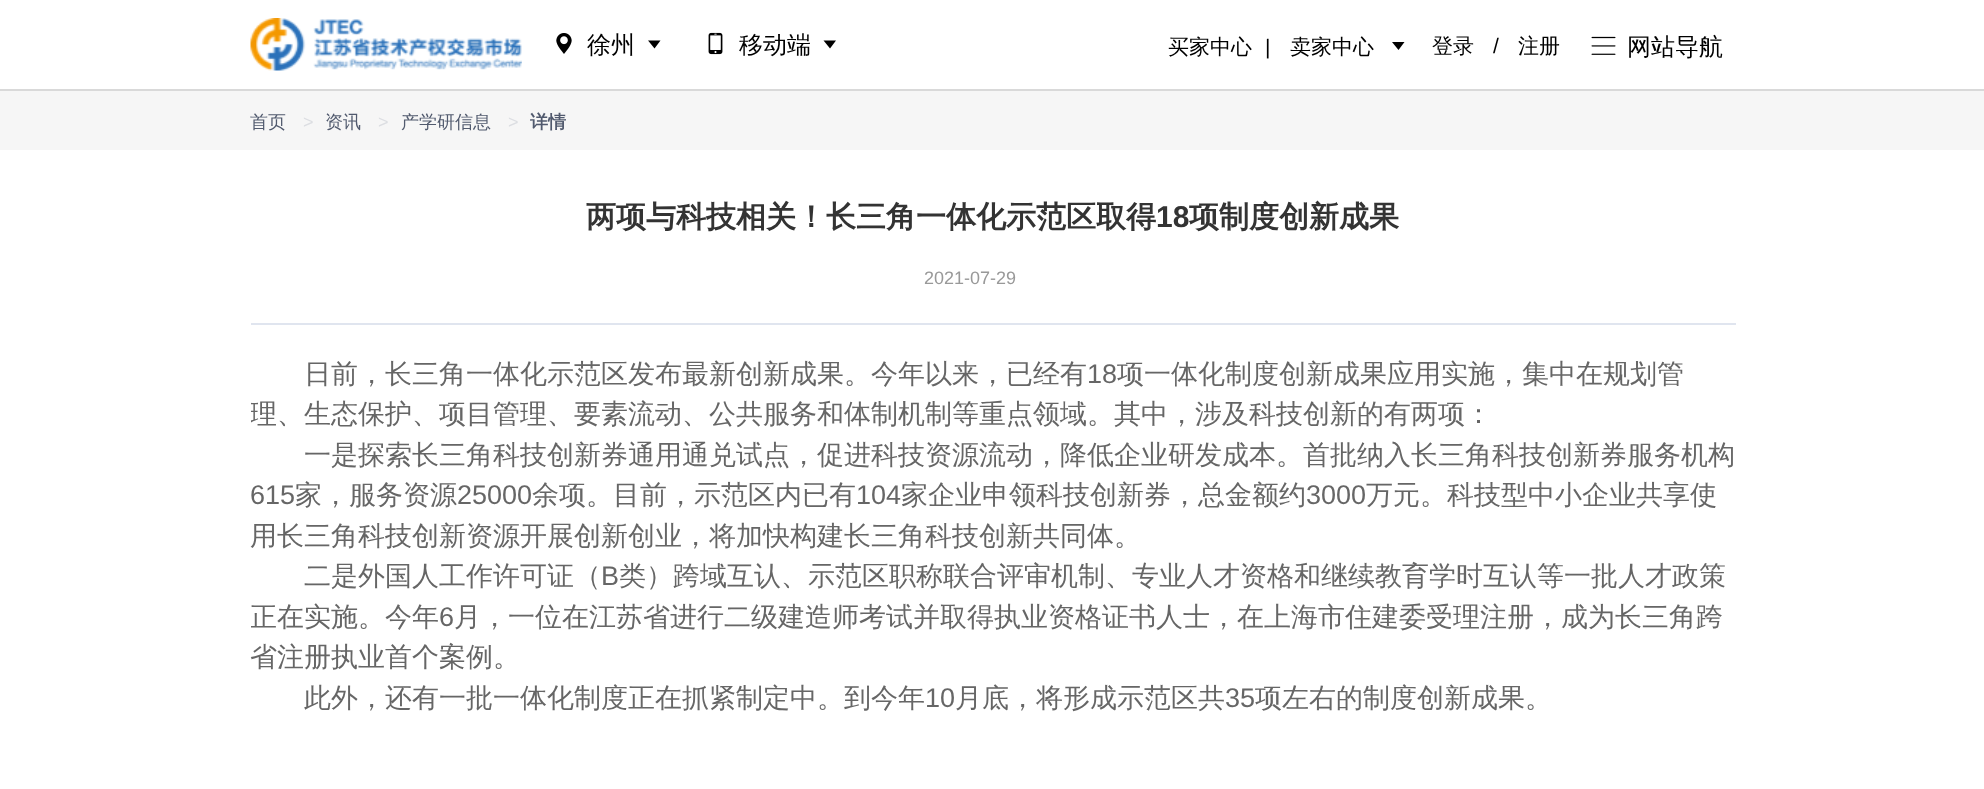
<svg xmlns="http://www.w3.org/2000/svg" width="1984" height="789">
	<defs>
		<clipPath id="clip1"><rect x="251" y="165" width="1485" height="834" /></clipPath>
	</defs>
	<rect width="100%" height="100%" fill="#FFFFFF" />
	<rect x="0" y="89" width="1984" height="2" fill="#D9D9D9" />
	<image x="250" y="18" width="272" height="53" href="assets/img1.png" />
	<image x="556" y="33" width="16" height="21" href="assets/img2.png" />
	<text x="587" y="53" font-family="WenQuanYi Zen Hei" font-size="24" font-weight="500" fill="#000000">徐州</text>
	<path d="M660.5 40.5L654.5 48.5L648 40.5Z" fill="#000000" />
	<image x="708" y="32" width="15" height="23" href="assets/img3.png" />
	<text x="739" y="53" font-family="WenQuanYi Zen Hei" font-size="24" font-weight="500" fill="#000000">移动端</text>
	<path d="M836 40.5L830 48.5L823.5 40.5Z" fill="#000000" />
	<text x="1168" y="54" font-family="WenQuanYi Zen Hei" font-size="21" font-weight="500" fill="#000000">买家中心</text>
	<text x="1265" y="54" font-family="Liberation Sans" font-size="21" fill="#000000">|</text>
	<text x="1290" y="54" font-family="WenQuanYi Zen Hei" font-size="21" font-weight="500" fill="#000000">卖家中心</text>
	<path d="M1404.5 42L1398.5 50L1392 42Z" fill="#000000" />
	<text x="1432" y="53" font-family="WenQuanYi Zen Hei" font-size="21" font-weight="500" fill="#000000">登录</text>
	<text x="1493" y="53" font-family="Liberation Sans" font-size="21" fill="#000000">/</text>
	<text x="1518" y="53" font-family="WenQuanYi Zen Hei" font-size="21" font-weight="500" fill="#000000">注册</text>
	<image x="1591" y="36" width="25" height="19" href="assets/img4.png" />
	<text x="1627" y="55" font-family="WenQuanYi Zen Hei" font-size="24" font-weight="500" fill="#000000">网站导航</text>
	<rect x="0" y="91" width="1984" height="59" fill="#F6F6F6" />
	<text x="250" y="128" font-family="WenQuanYi Zen Hei" font-size="18" font-weight="500" fill="#515A6E">首页</text>
	<text x="303" y="128" font-family="Liberation Sans" font-size="18" fill="#DCDEE2">&gt;</text>
	<text x="325" y="128" font-family="WenQuanYi Zen Hei" font-size="18" font-weight="500" fill="#515A6E">资讯</text>
	<text x="378" y="128" font-family="Liberation Sans" font-size="18" fill="#DCDEE2">&gt;</text>
	<text x="401" y="128" font-family="WenQuanYi Zen Hei" font-size="18" font-weight="500" fill="#515A6E">产学研信息</text>
	<text x="508" y="128" font-family="Liberation Sans" font-size="18" fill="#DCDEE2">&gt;</text>
	<text x="530" y="128" font-family="WenQuanYi Zen Hei" font-size="18" font-weight="700" fill="#515A6E">详情</text>
	<text x="586" y="227" font-family="WenQuanYi Zen Hei" font-size="30" font-weight="700" fill="#333333">两项与科技相关！长三角一体化示范区取得</text>
	<text x="1156" y="227" font-family="Liberation Sans" font-size="30" font-weight="700" fill="#333333">18</text>
	<text x="1189" y="227" font-family="WenQuanYi Zen Hei" font-size="30" font-weight="700" fill="#333333">项制度创新成果</text>
	<rect x="251" y="323" width="1485" height="2" fill="#E0E5EF" />
	<text x="924" y="284" font-family="Liberation Sans" font-size="18" fill="#999999">2021-07-29</text>
	<text x="304" y="383" font-family="WenQuanYi Zen Hei" font-size="27" font-weight="500" fill="#666666">日前，长三角一体化示范区发布最新创新成果。今年以来，已经有</text>
	<text x="1087" y="383" font-family="Liberation Sans" font-size="27" fill="#666666">18</text>
	<text x="1117" y="383" font-family="WenQuanYi Zen Hei" font-size="27" font-weight="500" fill="#666666">项一体化制度创新成果应用实施，集中在规划管</text>
	<g clip-path="url(#clip1)">
		<text x="250" y="423" font-family="WenQuanYi Zen Hei" font-size="27" font-weight="500" fill="#666666">理、生态保护、项目管理、要素流动、公共服务和体制机制等重点领域。其中，涉及科技创新的有两项：</text>
	</g>
	<text x="304" y="464" font-family="WenQuanYi Zen Hei" font-size="27" font-weight="500" fill="#666666">一是探索长三角科技创新券通用通兑试点，促进科技资源流动，降低企业研发成本。首批纳入长三角科技创新券服务机构</text>
	<text x="250" y="504" font-family="Liberation Sans" font-size="27" fill="#666666">615</text>
	<text x="295" y="504" font-family="WenQuanYi Zen Hei" font-size="27" font-weight="500" fill="#666666">家，服务资源</text>
	<text x="457" y="504" font-family="Liberation Sans" font-size="27" fill="#666666">25000</text>
	<text x="532" y="504" font-family="WenQuanYi Zen Hei" font-size="27" font-weight="500" fill="#666666">余项。目前，示范区内已有</text>
	<text x="856" y="504" font-family="Liberation Sans" font-size="27" fill="#666666">104</text>
	<text x="901" y="504" font-family="WenQuanYi Zen Hei" font-size="27" font-weight="500" fill="#666666">家企业申领科技创新券，总金额约</text>
	<text x="1306" y="504" font-family="Liberation Sans" font-size="27" fill="#666666">3000</text>
	<g font-family="WenQuanYi Zen Hei" font-size="27" font-weight="500" fill="#666666">
		<text x="1366" y="504">万元。科技型中小企业共享使</text>
		<text x="250" y="545">用长三角科技创新资源开展创新创业，将加快构建长三角科技创新共同体。</text>
		<text x="304" y="585">二是外国人工作许可证（</text>
	</g>
	<text x="601" y="585" font-family="Liberation Sans" font-size="27" fill="#666666">B</text>
	<text x="619" y="585" font-family="WenQuanYi Zen Hei" font-size="27" font-weight="500" fill="#666666">类）跨域互认、示范区职称联合评审机制、专业人才资格和继续教育学时互认等一批人才政策</text>
	<g clip-path="url(#clip1)">
		<text x="250" y="626" font-family="WenQuanYi Zen Hei" font-size="27" font-weight="500" fill="#666666">正在实施。今年</text>
	</g>
	<text x="439" y="626" font-family="Liberation Sans" font-size="27" fill="#666666">6</text>
	<g font-family="WenQuanYi Zen Hei" font-size="27" font-weight="500" fill="#666666">
		<text x="454" y="626">月，一位在江苏省进行二级建造师考试并取得执业资格证书人士，在上海市住建委受理注册，成为长三角跨</text>
		<text x="250" y="666">省注册执业首个案例。</text>
		<text x="304" y="707">此外，还有一批一体化制度正在抓紧制定中。到今年</text>
	</g>
	<text x="925" y="707" font-family="Liberation Sans" font-size="27" fill="#666666">10</text>
	<text x="955" y="707" font-family="WenQuanYi Zen Hei" font-size="27" font-weight="500" fill="#666666">月底，将形成示范区共</text>
	<text x="1225" y="707" font-family="Liberation Sans" font-size="27" fill="#666666">35</text>
	<text x="1255" y="707" font-family="WenQuanYi Zen Hei" font-size="27" font-weight="500" fill="#666666">项左右的制度创新成果。</text>
</svg>
